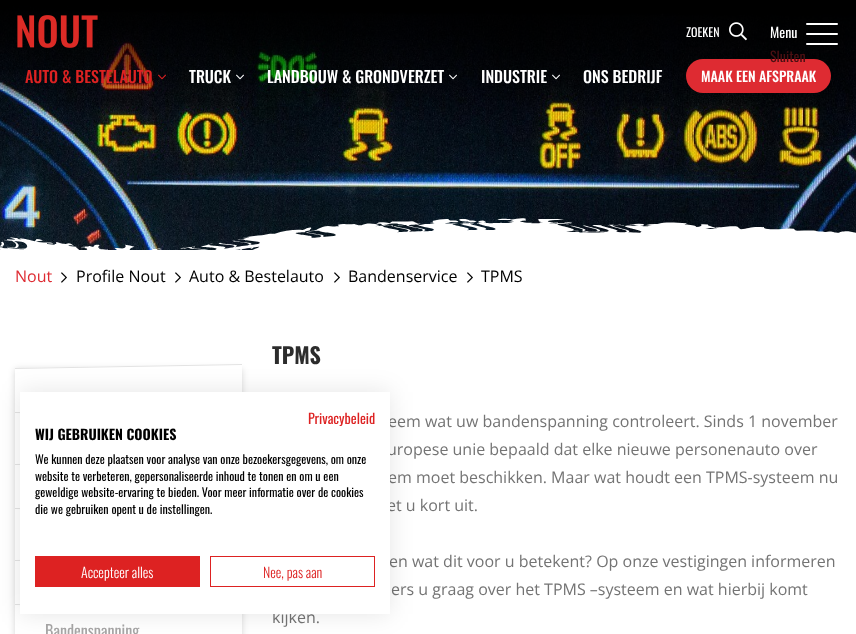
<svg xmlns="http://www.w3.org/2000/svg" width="856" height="634">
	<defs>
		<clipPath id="clip1"><path d="M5 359H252V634H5ZM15 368L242 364V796L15 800Z" clip-rule="evenodd" /></clipPath>
	</defs>
	<rect width="100%" height="100%" fill="#FFFFFF" />
	<image x="0" y="0" width="856" height="250" href="assets/img1.png" />
	<image x="0" y="218" width="856" height="32" href="assets/img2.png" />
	<image x="17" y="15" width="81" height="33" href="assets/img3.png" />
	<text x="686" y="37" font-family="Oswald" font-size="12" fill="#FFFFFF">ZOEKEN</text>
	<image x="729" y="22" width="18" height="19" href="assets/img4.png" />
	<text x="770" y="38" font-family="Oswald" font-size="14" fill="#FFFFFF">Menu</text>
	<rect x="686" y="59" width="145" height="34" rx="17" fill="#DE2B32" />
	<text x="770" y="62" font-family="Oswald" font-size="14" fill="#4B1013">Sluiten</text>
	<rect x="806" y="23" width="32" height="2" rx="1" fill="#FFFFFF" />
	<rect x="806" y="33" width="32" height="2" rx="1" fill="#FFFFFF" />
	<rect x="806" y="43" width="32" height="2" rx="1" fill="#FFFFFF" />
	<text x="25" y="83" font-family="Oswald" font-size="16" font-weight="500" fill="#DD2222">AUTO &amp; BESTELAUTO</text>
	<image x="158" y="74" width="8" height="6" href="assets/img5.png" />
	<text x="189" y="83" font-family="Oswald" font-size="16" font-weight="500" fill="#FFFFFF">TRUCK</text>
	<image x="236" y="74" width="8" height="6" href="assets/img6.png" />
	<text x="267" y="83" font-family="Oswald" font-size="16" font-weight="500" fill="#FFFFFF">LANDBOUW &amp; GRONDVERZET</text>
	<image x="449" y="74" width="8" height="6" href="assets/img7.png" />
	<text x="481" y="83" font-family="Oswald" font-size="16" font-weight="500" fill="#FFFFFF">INDUSTRIE</text>
	<image x="552" y="74" width="8" height="6" href="assets/img8.png" />
	<text x="583" y="83" font-family="Oswald" font-size="16" font-weight="500" fill="#FFFFFF">ONS BEDRIJF</text>
	<text x="701" y="82" font-family="Oswald" font-size="14" font-weight="500" fill="#FFFFFF">MAAK EEN AFSPRAAK</text>
	<text x="15" y="282" font-family="Open Sans" font-size="16" fill="#DE2B32">Nout</text>
	<image x="61" y="272" width="6" height="11" href="assets/img9.png" />
	<text x="76" y="282" font-family="Open Sans" font-size="16" fill="#000000">Profile Nout</text>
	<image x="175" y="272" width="6" height="11" href="assets/img9.png" />
	<text x="189" y="282" font-family="Open Sans" font-size="16" fill="#000000">Auto &amp; Bestelauto</text>
	<image x="334" y="272" width="6" height="11" href="assets/img9.png" />
	<text x="348" y="282" font-family="Open Sans" font-size="16" fill="#000000">Bandenservice</text>
	<image x="467" y="272" width="6" height="11" href="assets/img9.png" />
	<text x="481" y="282" font-family="Open Sans" font-size="16" fill="#000000">TPMS</text>
	<text x="272" y="364" font-family="Oswald" font-size="22" font-weight="700" fill="#2C2C2C">TPMS</text>
	<g font-family="Open Sans" font-size="16" fill="#747474">
		<text x="388" y="427">eem wat uw bandenspanning controleert. Sinds 1 november</text>
		<text x="387" y="455">uropese unie bepaald dat elke nieuwe personenauto over</text>
		<text x="388" y="483">em moet beschikken. Maar wat houdt een TPMS-systeem nu</text>
		<text x="387" y="511">et u kort uit.</text>
		<text x="389" y="567">en wat dit voor u betekent? Op onze vestigingen informeren</text>
		<text x="391" y="595">ers u graag over het TPMS –systeem en wat hierbij komt</text>
		<text x="272" y="623">kijken.</text>
	</g>
	<g clip-path="url(#clip1)">
		<rect x="15" y="369" width="227" height="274" fill="#000000" fill-opacity="0.16" filter="blur(3px)" />
	</g>
	<path d="M15 368L242 364V365L15 369Z" fill="#E3E3E3" />
	<path d="M15 412L242 416V417L15 413Z" fill="#E3E3E3" />
	<path d="M15 464L242 460V461L15 465Z" fill="#E3E3E3" />
	<path d="M15 508L242 512V513L15 509Z" fill="#E3E3E3" />
	<path d="M15 560L242 556V557L15 561Z" fill="#E3E3E3" />
	<path d="M15 604L242 608V609L15 605Z" fill="#E3E3E3" />
	<text x="45" y="637" font-family="Oswald" font-size="16" fill="#A7A6A6">Bandenspanning</text>
	<rect x="20" y="392" width="370" height="222" fill="#000000" fill-opacity="0.1" filter="blur(12px)" />
	<rect x="20" y="392" width="370" height="222" fill="#FFFFFF" />
	<text x="308" y="424" font-family="Oswald" font-size="14" fill="#DD2222">Privacybeleid</text>
	<text x="35" y="440" font-family="Oswald" font-size="14" font-weight="700" fill="#000000">WIJ GEBRUIKEN COOKIES</text>
	<g font-family="Oswald" font-size="12" fill="#000000">
		<text x="35" y="464">We kunnen deze plaatsen voor analyse van onze bezoekersgegevens, om onze</text>
		<text x="35" y="481">website te verbeteren, gepersonaliseerde inhoud te tonen en om u een</text>
		<text x="35" y="497">geweldige website-ervaring te bieden. Voor meer informatie over de cookies</text>
		<text x="35" y="514">die we gebruiken opent u de instellingen.</text>
	</g>
	<rect x="35" y="556" width="165" height="31" fill="#DD2222" />
	<text x="81" y="578" font-family="Oswald" font-size="14" font-weight="300" fill="#FFFFFF">Accepteer alles</text>
	<rect x="210.5" y="556.5" width="164" height="30" fill="none" stroke="#DD2222" />
	<text x="263" y="578" font-family="Oswald" font-size="14" font-weight="300" fill="#DD2222">Nee, pas aan</text>
</svg>
